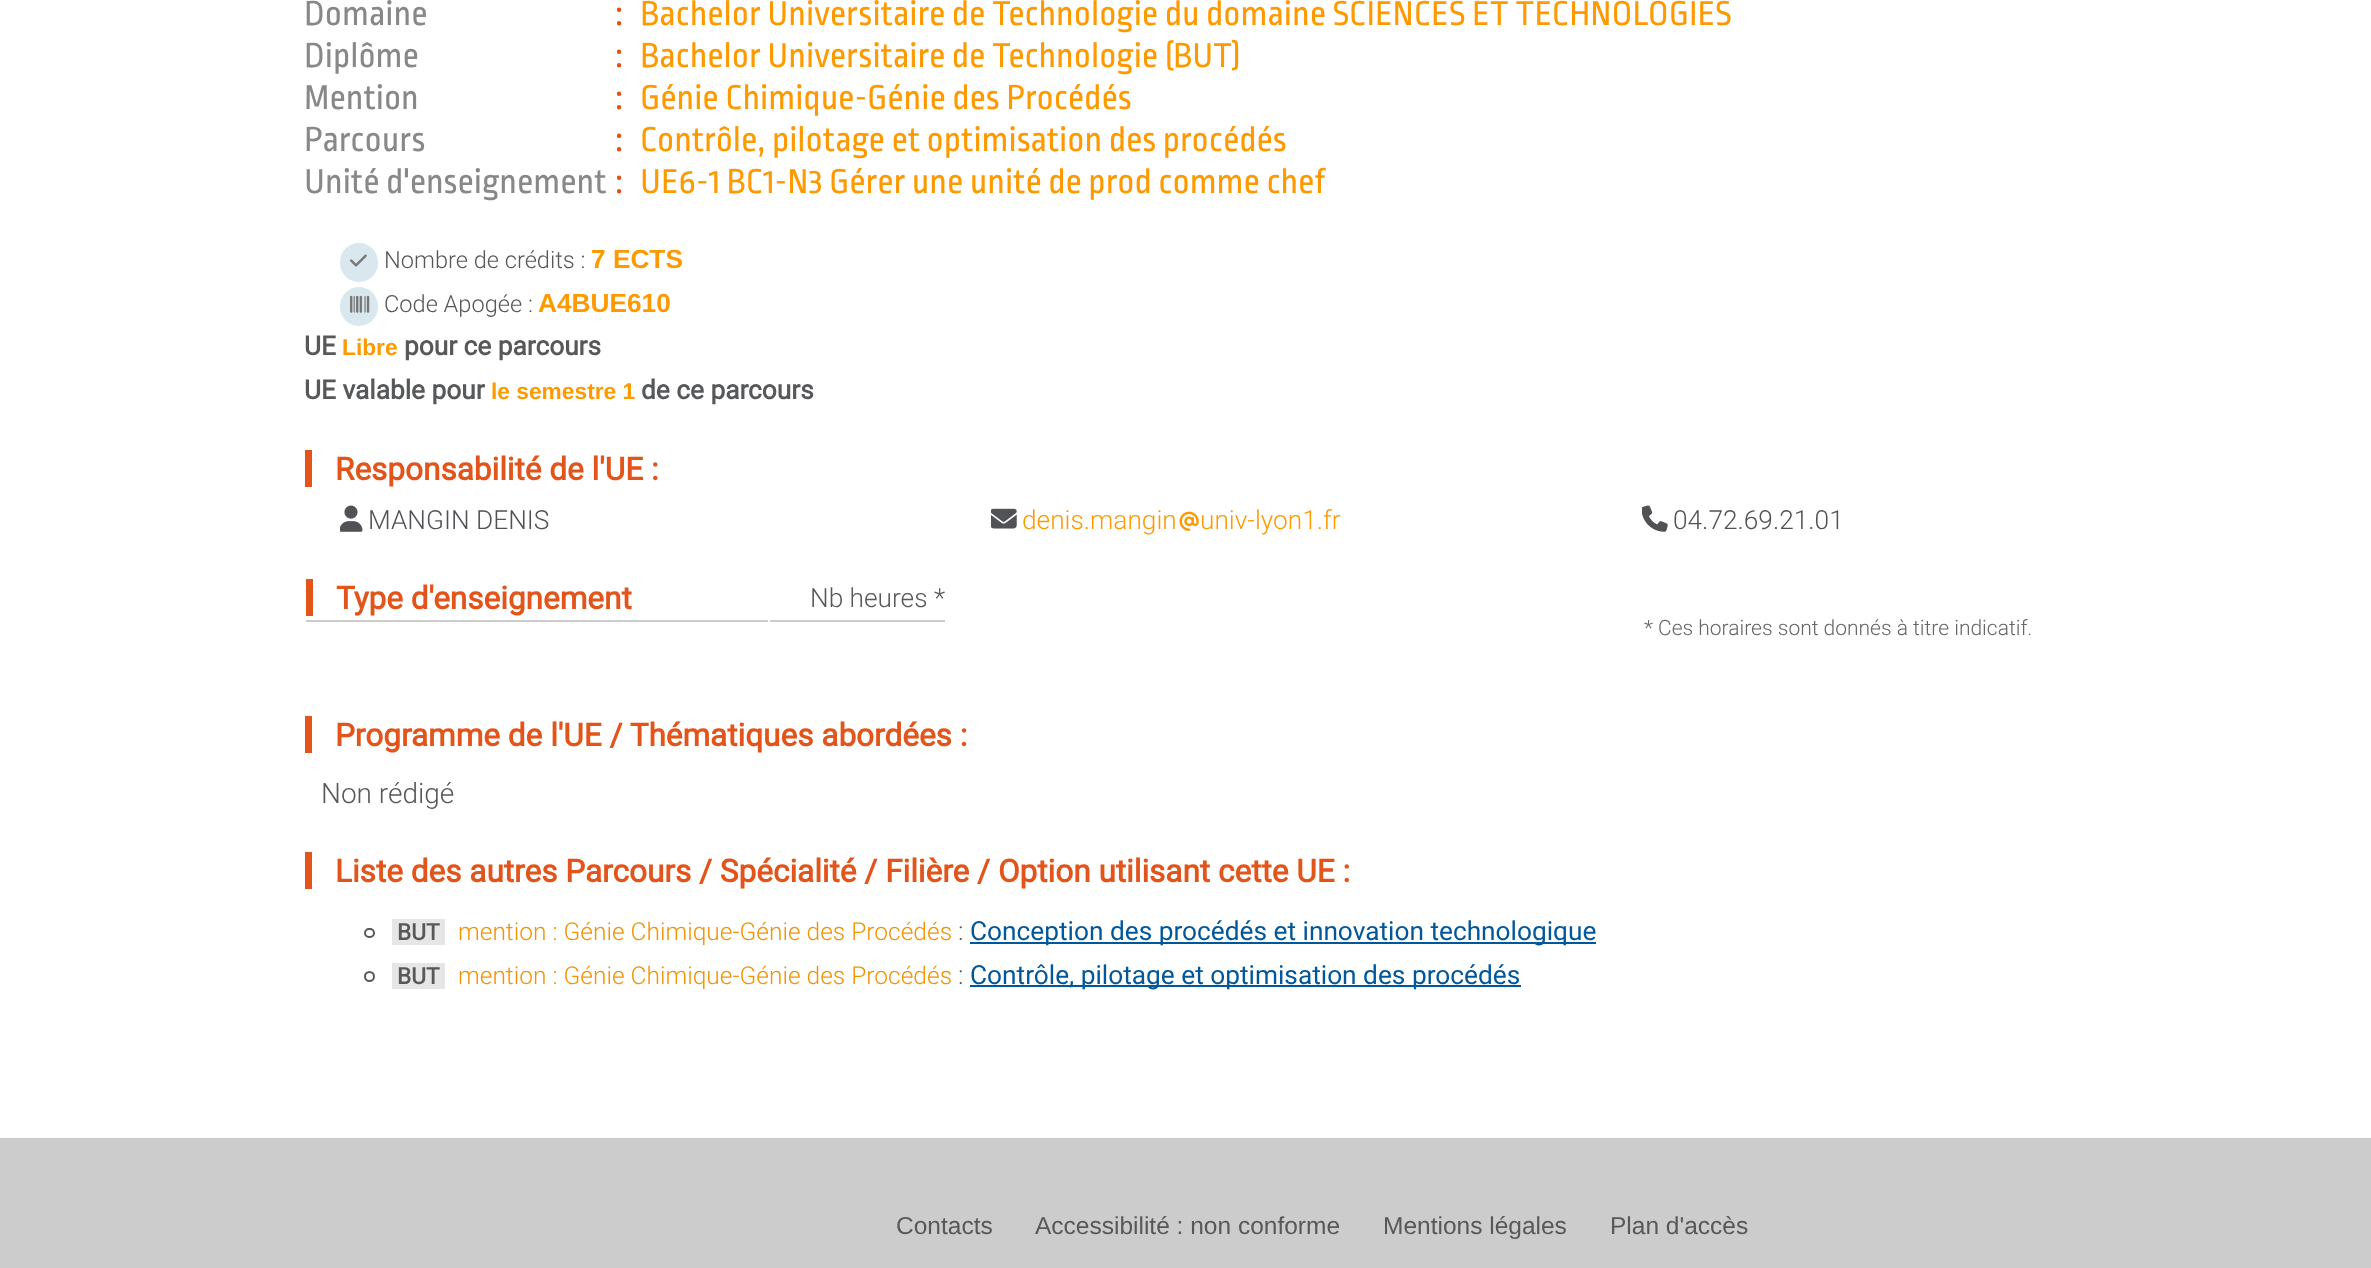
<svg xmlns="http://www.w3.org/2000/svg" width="2371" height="1268">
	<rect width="100%" height="100%" fill="#FFFFFF" />
	<text x="304" y="25" font-family="Ropa Sans" font-size="36.4" fill="#888888">Domaine</text>
	<text x="615" y="25" font-family="Ropa Sans" font-size="36.4" fill="#E94F11">:</text>
	<text x="640" y="25" font-family="Ropa Sans" font-size="36.4" fill="#FE9900">Bachelor Universitaire de Technologie du domaine SCIENCES ET TECHNOLOGIES</text>
	<text x="304" y="67" font-family="Ropa Sans" font-size="36.4" fill="#888888">Diplôme</text>
	<text x="615" y="67" font-family="Ropa Sans" font-size="36.4" fill="#E94F11">:</text>
	<text x="640" y="67" font-family="Ropa Sans" font-size="36.4" fill="#FE9900">Bachelor Universitaire de Technologie (BUT)</text>
	<text x="304" y="109" font-family="Ropa Sans" font-size="36.4" fill="#888888">Mention</text>
	<text x="615" y="109" font-family="Ropa Sans" font-size="36.4" fill="#E94F11">:</text>
	<text x="640" y="109" font-family="Ropa Sans" font-size="36.4" fill="#FE9900">Génie Chimique-Génie des Procédés</text>
	<text x="304" y="151" font-family="Ropa Sans" font-size="36.4" fill="#888888">Parcours</text>
	<text x="615" y="151" font-family="Ropa Sans" font-size="36.4" fill="#E94F11">:</text>
	<text x="640" y="151" font-family="Ropa Sans" font-size="36.4" fill="#FE9900">Contrôle, pilotage et optimisation des procédés</text>
	<text x="304" y="193" font-family="Ropa Sans" font-size="36.4" fill="#888888">Unité d'enseignement</text>
	<text x="615" y="193" font-family="Ropa Sans" font-size="36.4" fill="#E94F11">:</text>
	<text x="640" y="193" font-family="Ropa Sans" font-size="36.4" fill="#FE9900">UE6-1 BC1-N3 Gérer une unité de prod comme chef</text>
	<rect x="340" y="243" width="38" height="39" rx="19" fill="#D9E8EF" />
	<image x="350" y="254" width="17" height="13" href="assets/img1.png" />
	<text x="384" y="268" font-family="Roboto" font-size="23.6" font-weight="300" fill="#57585A">Nombre de crédits :</text>
	<text x="591" y="268" font-family="Liberation Sans" font-size="26.25" font-weight="700" fill="#FE9900">7 ECTS</text>
	<rect x="340" y="287" width="38" height="39" rx="19" fill="#D9E8EF" />
	<image x="350" y="295" width="20" height="18" href="assets/img2.png" />
	<text x="384" y="312" font-family="Roboto" font-size="23.6" font-weight="300" fill="#57585A">Code Apogée :</text>
	<text x="538" y="312" font-family="Liberation Sans" font-size="26.25" font-weight="700" fill="#FE9900">A4BUE610</text>
	<text x="304" y="355" font-family="Roboto" font-size="26.25" font-weight="700" fill="#57585A">UE</text>
	<text x="342" y="355" font-family="Liberation Sans" font-size="22.75" font-weight="700" fill="#FE9900">Libre</text>
	<g font-family="Roboto" font-size="26.25" font-weight="700" fill="#57585A">
		<text x="404" y="355">pour ce parcours</text>
		<text x="304" y="399">UE valable pour</text>
	</g>
	<text x="491" y="399" font-family="Liberation Sans" font-size="22.75" font-weight="700" fill="#FE9900">le semestre 1</text>
	<text x="641" y="399" font-family="Roboto" font-size="26.25" font-weight="700" fill="#57585A">de ce parcours</text>
	<rect x="305" y="450" width="7" height="37" fill="#E3541A" />
	<text x="335" y="480" font-family="Roboto" font-size="31.5" font-weight="700" fill="#E3541A">Responsabilité de l'UE :</text>
	<image x="340" y="505" width="23" height="27" href="assets/img3.png" />
	<text x="368" y="529" font-family="Roboto" font-size="26.25" font-weight="300" fill="#515255">MANGIN DENIS</text>
	<image x="991" y="508" width="26" height="21" href="assets/img4.png" />
	<text x="1022" y="529" font-family="Roboto" font-size="26.25" font-weight="300" fill="#FE9900">denis.mangin</text>
	<image x="1179" y="511" width="20" height="20" href="assets/img5.png" />
	<text x="1200" y="529" font-family="Roboto" font-size="26.25" font-weight="300" fill="#FE9900">univ-lyon1.fr</text>
	<image x="1642" y="505" width="26" height="27" href="assets/img6.png" />
	<text x="1673" y="529" font-family="Roboto" font-size="26.25" font-weight="300" fill="#515255">04.72.69.21.01</text>
	<rect x="306" y="620" width="462" height="2" fill="#CCCCCC" />
	<rect x="306" y="579" width="7" height="37" fill="#E3541A" />
	<text x="336" y="609" font-family="Roboto" font-size="31.5" font-weight="700" fill="#E3541A">Type d'enseignement</text>
	<rect x="770" y="620" width="175" height="2" fill="#CCCCCC" />
	<text x="810" y="607" font-family="Roboto" font-size="26.25" font-weight="300" fill="#57585A">Nb heures *</text>
	<text x="1644" y="635" font-family="Roboto" font-size="21" font-weight="300" fill="#666666">* Ces horaires sont donnés à titre indicatif.</text>
	<rect x="305" y="716" width="7" height="37" fill="#E3541A" />
	<text x="335" y="746" font-family="Roboto" font-size="31.5" font-weight="700" fill="#E3541A">Programme de l'UE / Thématiques abordées :</text>
	<text x="321" y="803" font-family="Roboto" font-size="28" font-weight="300" fill="#57585A">Non rédigé</text>
	<rect x="305" y="852" width="7" height="37" fill="#E3541A" />
	<text x="335" y="882" font-family="Roboto" font-size="31.5" font-weight="700" fill="#E3541A">Liste des autres Parcours / Spécialité / Filière / Option utilisant cette UE :</text>
	<rect x="365" y="929" width="9" height="8" rx="4" fill="none" stroke="#57585A" stroke-width="2" />
	<rect x="392" y="919" width="53" height="26" fill="#E6E6E6" />
	<text x="397" y="940" font-family="Roboto" font-size="22.75" font-weight="700" fill="#57585A">BUT</text>
	<text x="458" y="940" font-family="Roboto" font-size="24.5" font-weight="300" fill="#F29304">mention : Génie Chimique-Génie des Procédés</text>
	<text x="958" y="940" font-family="Roboto" font-size="26.25" font-weight="300" fill="#57585A">:</text>
	<rect x="970" y="942" width="626" height="2" fill="#01579B" />
	<text x="970" y="940" font-family="Roboto" font-size="26.25" fill="#01579B">Conception des procédés et innovation technologique</text>
	<circle cx="369.5" cy="976.5" r="4.5" fill="none" stroke="#57585A" stroke-width="2" />
	<rect x="392" y="963" width="53" height="26" fill="#E6E6E6" />
	<text x="397" y="984" font-family="Roboto" font-size="22.75" font-weight="700" fill="#57585A">BUT</text>
	<text x="458" y="984" font-family="Roboto" font-size="24.5" font-weight="300" fill="#F29304">mention : Génie Chimique-Génie des Procédés</text>
	<text x="958" y="984" font-family="Roboto" font-size="26.25" font-weight="300" fill="#57585A">:</text>
	<rect x="970" y="985" width="551" height="2" fill="#01579B" />
	<text x="970" y="984" font-family="Roboto" font-size="26.25" fill="#01579B">Contrôle, pilotage et optimisation des procédés</text>
	<rect x="0" y="1138" width="2371" height="130" fill="#CCCCCC" />
	<g font-family="Liberation Sans" font-size="24.5" fill="#57585A">
		<text x="896" y="1234">Contacts</text>
		<text x="1035" y="1234">Accessibilité : non conforme</text>
		<text x="1383" y="1234">Mentions légales</text>
		<text x="1610" y="1234">Plan d'accès</text>
	</g>
</svg>
